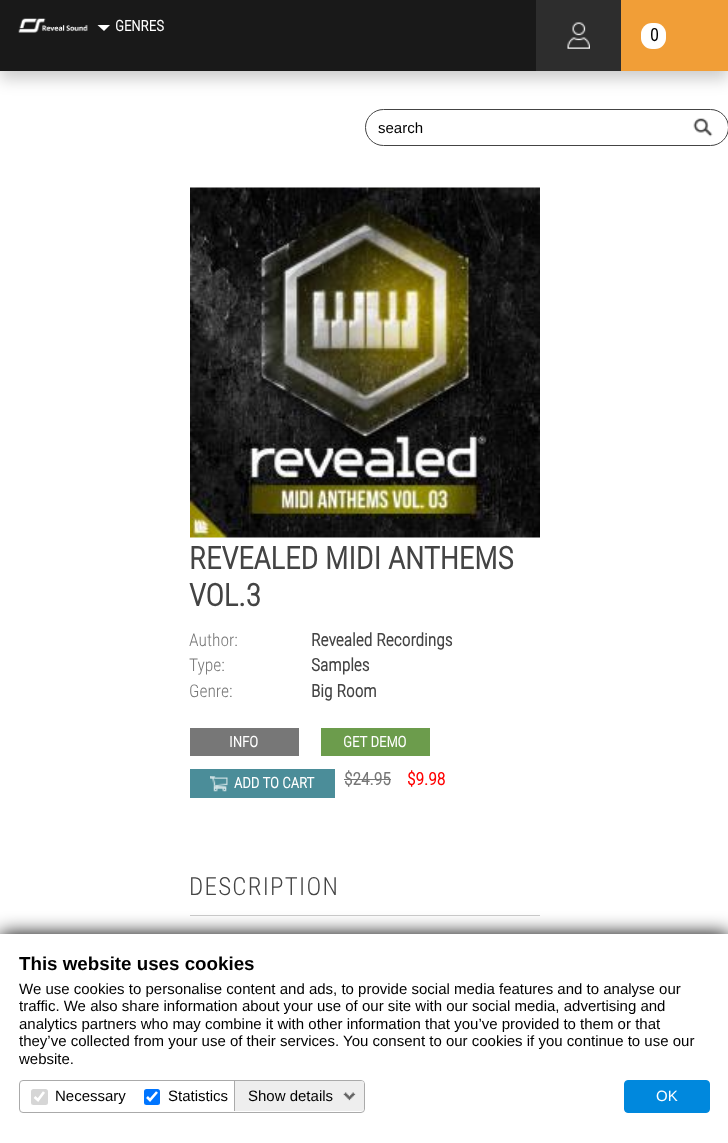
<svg xmlns="http://www.w3.org/2000/svg" width="728" height="1143">
	<rect width="100%" height="100%" fill="#FFFFFF" />
	<rect x="0" y="8" width="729" height="71" fill="#000000" fill-opacity="0.2" filter="blur(8px)" />
	<rect x="0" y="0" width="536" height="71" fill="#191919" />
	<image x="18" y="18" width="70" height="15" href="assets/img1.png" />
	<path d="M97.5 25H110L104 31Z" fill="#FFFFFF" />
	<text x="115" y="31" font-family="Roboto Condensed" font-size="15" font-weight="700" fill="#FFFFFF">GENRES</text>
	<rect x="536" y="0" width="85" height="71" fill="#2D2D2D" />
	<image x="567" y="22" width="23" height="27" href="assets/img2.png" />
	<rect x="621" y="0" width="107" height="71" fill="#F19E37" />
	<rect x="641" y="23" width="25" height="26" rx="11" fill="#FFFFFF" />
	<text x="650" y="41" font-family="Roboto Condensed" font-size="17.5" font-weight="700" fill="#000000">0</text>
	<rect x="365.5" y="109.5" width="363" height="36" rx="18" fill="none" stroke="#444444" />
	<text x="378" y="133" font-family="Liberation Sans" font-size="15" fill="#000000">search</text>
	<image x="693" y="118" width="20" height="19" href="assets/img3.png" />
	<image x="190" y="187" width="350" height="351" href="assets/img4.png" />
	<g font-family="Roboto Condensed" font-size="31" font-weight="700" fill="#444444">
		<text x="189" y="569">REVEALED MIDI ANTHEMS</text>
		<text x="189" y="606">VOL.3</text>
	</g>
	<text x="189" y="646" font-family="Roboto Condensed" font-size="17.5" font-weight="300" fill="#777777">Author:</text>
	<text x="311" y="646" font-family="Roboto Condensed" font-size="17.5" font-weight="700" fill="#444444">Revealed Recordings</text>
	<text x="189" y="671" font-family="Roboto Condensed" font-size="17.5" font-weight="300" fill="#777777">Type:</text>
	<text x="311" y="671" font-family="Roboto Condensed" font-size="17.5" font-weight="700" fill="#444444">Samples</text>
	<text x="189" y="697" font-family="Roboto Condensed" font-size="17.5" font-weight="300" fill="#777777">Genre:</text>
	<text x="311" y="697" font-family="Roboto Condensed" font-size="17.5" font-weight="700" fill="#444444">Big Room</text>
	<rect x="190" y="728" width="109" height="28" fill="#777777" />
	<text x="229" y="747" font-family="Roboto Condensed" font-size="15" font-weight="700" fill="#FFFFFF">INFO</text>
	<rect x="321" y="728" width="109" height="28" fill="#6C9C4C" />
	<text x="343" y="747" font-family="Roboto Condensed" font-size="15" font-weight="700" fill="#FFFFFF">GET DEMO</text>
	<rect x="190" y="769" width="145" height="29" fill="#4B8D99" />
	<image x="210" y="776" width="18" height="16" href="assets/img5.png" />
	<text x="234" y="788" font-family="Roboto Condensed" font-size="15" font-weight="700" fill="#FFFFFF">ADD TO CART</text>
	<text x="344" y="785" font-family="Roboto Condensed" font-size="17.5" font-weight="700" fill="#777777">$24.95</text>
	<rect x="344" y="779" width="47" height="1" fill="#777777" />
	<text x="407" y="785" font-family="Roboto Condensed" font-size="17.5" font-weight="700" fill="#FF0000">$9.98</text>
	<rect x="190" y="915" width="350" height="1" fill="#CCCCCC" />
	<text x="189" y="895" font-family="Roboto Condensed" font-size="25" font-weight="300" letter-spacing="1.25" fill="#444444">DESCRIPTION</text>
	<rect x="0" y="934" width="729" height="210" fill="#000000" filter="blur(9.5px)" />
	<rect x="0" y="934" width="728" height="209" fill="#FFFFFF" />
	<text x="19" y="970" font-family="Liberation Sans" font-size="18.75" font-weight="700" fill="#000000">This website uses cookies</text>
	<g font-family="Liberation Sans" font-size="15" fill="#000000">
		<text x="19" y="994">We use cookies to personalise content and ads, to provide social media features and to analyse our</text>
		<text x="19" y="1011">traffic. We also share information about your use of our site with our social media, advertising and</text>
		<text x="19" y="1029">analytics partners who may combine it with other information that you’ve provided to them or that</text>
		<text x="19" y="1046">they’ve collected from your use of their services. You consent to our cookies if you continue to use our</text>
		<text x="19" y="1064">website.</text>
	</g>
	<rect x="19.5" y="1080.5" width="345" height="32" rx="3.5" fill="none" stroke="#AAAAAA" />
	<rect x="31" y="1089" width="17" height="16" rx="2.5" fill="#D6D6D6" />
	<path d="M34.5 1097L38 1100L44 1092" fill="none" stroke="#FFFFFF" stroke-width="2.6" />
	<text x="55" y="1101" font-family="Liberation Sans" font-size="15" fill="#000000">Necessary</text>
	<rect x="144" y="1089" width="16" height="16" rx="2.5" fill="#0075FF" />
	<path d="M147 1097L150 1100L157 1092" fill="none" stroke="#FFFFFF" stroke-width="2.6" />
	<text x="168" y="1101" font-family="Liberation Sans" font-size="15" fill="#000000">Statistics</text>
	<path d="M234 1081H361.5C363 1081 364 1082 364 1083.5V1108.5C364 1110 363 1111 361.5 1111H234Z" fill="#EEEEEE" />
	<image x="343" y="1092" width="13" height="9" href="assets/img6.png" />
	<rect x="234" y="1081" width="1" height="30" fill="#AAAAAA" />
	<text x="248" y="1101" font-family="Liberation Sans" font-size="15" fill="#000000">Show details</text>
	<rect x="624.5" y="1080.5" width="85" height="32" rx="3.5" fill="#0088DD" stroke="#0088DD" />
	<text x="656" y="1101" font-family="Liberation Sans" font-size="15" fill="#FFFFFF">OK</text>
</svg>
